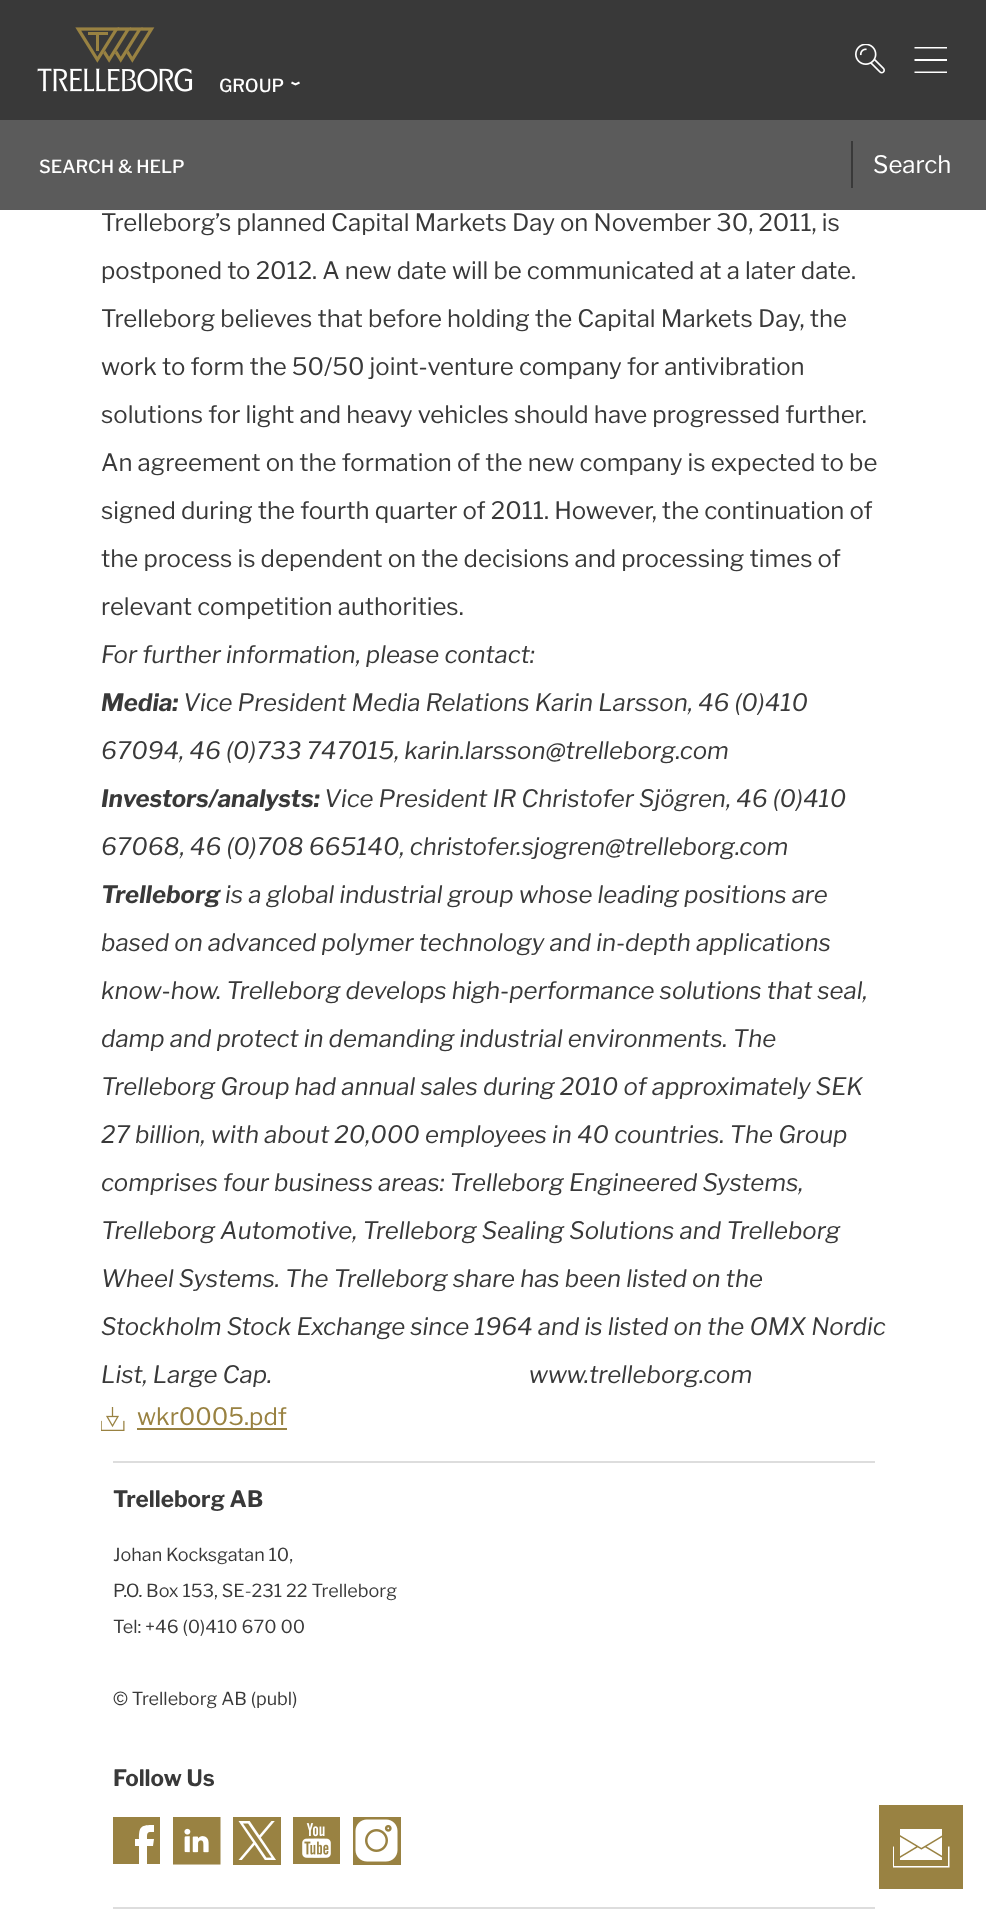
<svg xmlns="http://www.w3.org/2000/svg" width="986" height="1912">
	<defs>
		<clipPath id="clip1"><rect x="113" y="1817" width="48" height="48" /></clipPath>
	</defs>
	<rect width="100%" height="100%" fill="#FFFFFF" />
	<rect x="0" y="0" width="986" height="120" fill="#393939" />
	<image x="37" y="27" width="156" height="65" href="assets/img1.png" />
	<text x="219" y="92" font-family="Libre Franklin" font-size="18" font-weight="500" fill="#FFFFFF">GROUP</text>
	<path d="M299.5 82.5L295.5 84.5L291.5 82.5" fill="none" stroke="#FFFFFF" stroke-width="2" />
	<image x="855" y="44" width="30" height="30" href="assets/img2.png" />
	<path d="M947 48.5H914.5V47H947ZM947 59H914.5V61H947ZM947 71.5H914.5V73H947Z" fill="#FFFFFF" />
	<rect x="0" y="120" width="986" height="90" fill="#5B5B5B" />
	<text x="39" y="173" font-family="Libre Franklin" font-size="18" font-weight="500" fill="#FFFFFF">SEARCH &amp; HELP</text>
	<rect x="851" y="141" width="2" height="47" fill="#393939" />
	<text x="873" y="173" font-family="Libre Franklin" font-size="24" fill="#FFFFFF">Search</text>
	<rect x="879" y="1805" width="84" height="84" fill="#998242" />
	<image x="893" y="1829" width="57" height="39" href="assets/img3.png" />
	<g font-family="Libre Franklin" font-size="24" fill="#393939">
		<text x="101" y="231">Trelleborg’s planned Capital Markets Day on November 30, 2011, is</text>
		<text x="101" y="279">postponed to 2012. A new date will be communicated at a later date.</text>
		<text x="101" y="327">Trelleborg believes that before holding the Capital Markets Day, the</text>
		<text x="101" y="375">work to form the 50/50 joint-venture company for antivibration</text>
		<text x="101" y="423">solutions for light and heavy vehicles should have progressed further.</text>
		<text x="101" y="471">An agreement on the formation of the new company is expected to be</text>
		<text x="101" y="519">signed during the fourth quarter of 2011. However, the continuation of</text>
		<text x="101" y="567">the process is dependent on the decisions and processing times of</text>
		<text x="101" y="615">relevant competition authorities.</text>
	</g>
	<text x="101" y="663" font-family="Libre Franklin" font-size="24" font-style="italic" fill="#393939">For further information, please contact:</text>
	<text x="101" y="711" font-family="Libre Franklin" font-size="24" font-weight="700" font-style="italic" fill="#393939">Media:</text>
	<g font-family="Libre Franklin" font-size="24" font-style="italic" fill="#393939">
		<text x="183" y="711">Vice President Media Relations Karin Larsson, 46 (0)410</text>
		<text x="101" y="759">67094, 46 (0)733 747015, karin.larsson@trelleborg.com</text>
	</g>
	<text x="101" y="807" font-family="Libre Franklin" font-size="24" font-weight="700" font-style="italic" fill="#393939">Investors/analysts:</text>
	<g font-family="Libre Franklin" font-size="24" font-style="italic" fill="#393939">
		<text x="324" y="807">Vice President IR Christofer Sjögren, 46 (0)410</text>
		<text x="101" y="855">67068, 46 (0)708 665140, christofer.sjogren@trelleborg.com</text>
	</g>
	<text x="101" y="903" font-family="Libre Franklin" font-size="24" font-weight="700" font-style="italic" fill="#393939">Trelleborg</text>
	<g font-family="Libre Franklin" font-size="24" font-style="italic" fill="#393939">
		<text x="225" y="903">is a global industrial group whose leading positions are</text>
		<text x="101" y="951">based on advanced polymer technology and in-depth applications</text>
		<text x="101" y="999">know-how. Trelleborg develops high-performance solutions that seal,</text>
		<text x="101" y="1047">damp and protect in demanding industrial environments. The</text>
		<text x="101" y="1095">Trelleborg Group had annual sales during 2010 of approximately SEK</text>
		<text x="101" y="1143">27 billion, with about 20,000 employees in 40 countries. The Group</text>
		<text x="101" y="1191">comprises four business areas: Trelleborg Engineered Systems,</text>
		<text x="101" y="1239">Trelleborg Automotive, Trelleborg Sealing Solutions and Trelleborg</text>
		<text x="101" y="1287">Wheel Systems. The Trelleborg share has been listed on the</text>
		<text x="101" y="1335">Stockholm Stock Exchange since 1964 and is listed on the OMX Nordic</text>
		<text x="101" y="1383" xml:space="preserve">List, Large Cap.                                                  www.trelleborg.com</text>
	</g>
	<image x="101" y="1407" width="24" height="24" href="assets/img4.png" />
	<rect x="137" y="1428" width="150" height="2" fill="#998242" />
	<text x="137" y="1425" font-family="Libre Franklin" font-size="24" fill="#998242">wkr0005.pdf</text>
	<rect x="113" y="1461" width="762" height="2" fill="#DDDDDD" />
	<text x="113" y="1507" font-family="Libre Franklin" font-size="22.5" font-weight="700" fill="#393939">Trelleborg AB</text>
	<g font-family="Libre Franklin" font-size="18" fill="#393939">
		<text x="113" y="1561">Johan Kocksgatan 10,</text>
		<text x="113" y="1597">P.O. Box 153, SE-231 22 Trelleborg</text>
		<text x="113" y="1633">Tel: +46 (0)410 670 00</text>
		<text x="113" y="1705">© Trelleborg AB (publ)</text>
	</g>
	<text x="113" y="1786" font-family="Libre Franklin" font-size="22.5" font-weight="700" fill="#393939">Follow Us</text>
	<rect x="113" y="1817" width="47" height="47" fill="#998242" />
	<g clip-path="url(#clip1)">
		<path d="M154 1839L153 1846H147V1866H139V1846H135V1839H139C139 1826 141 1825 154 1825V1832C147 1832 147 1832 147 1839Z" fill="#FFFFFF" />
	</g>
	<image x="173" y="1817" width="48" height="48" href="assets/img5.png" />
	<image x="233" y="1817" width="48" height="48" href="assets/img6.png" />
	<image x="293" y="1817" width="47" height="47" href="assets/img7.png" />
	<image x="353" y="1817" width="48" height="48" href="assets/img8.png" />
	<rect x="113" y="1907" width="762" height="2" fill="#DDDDDD" />
</svg>
